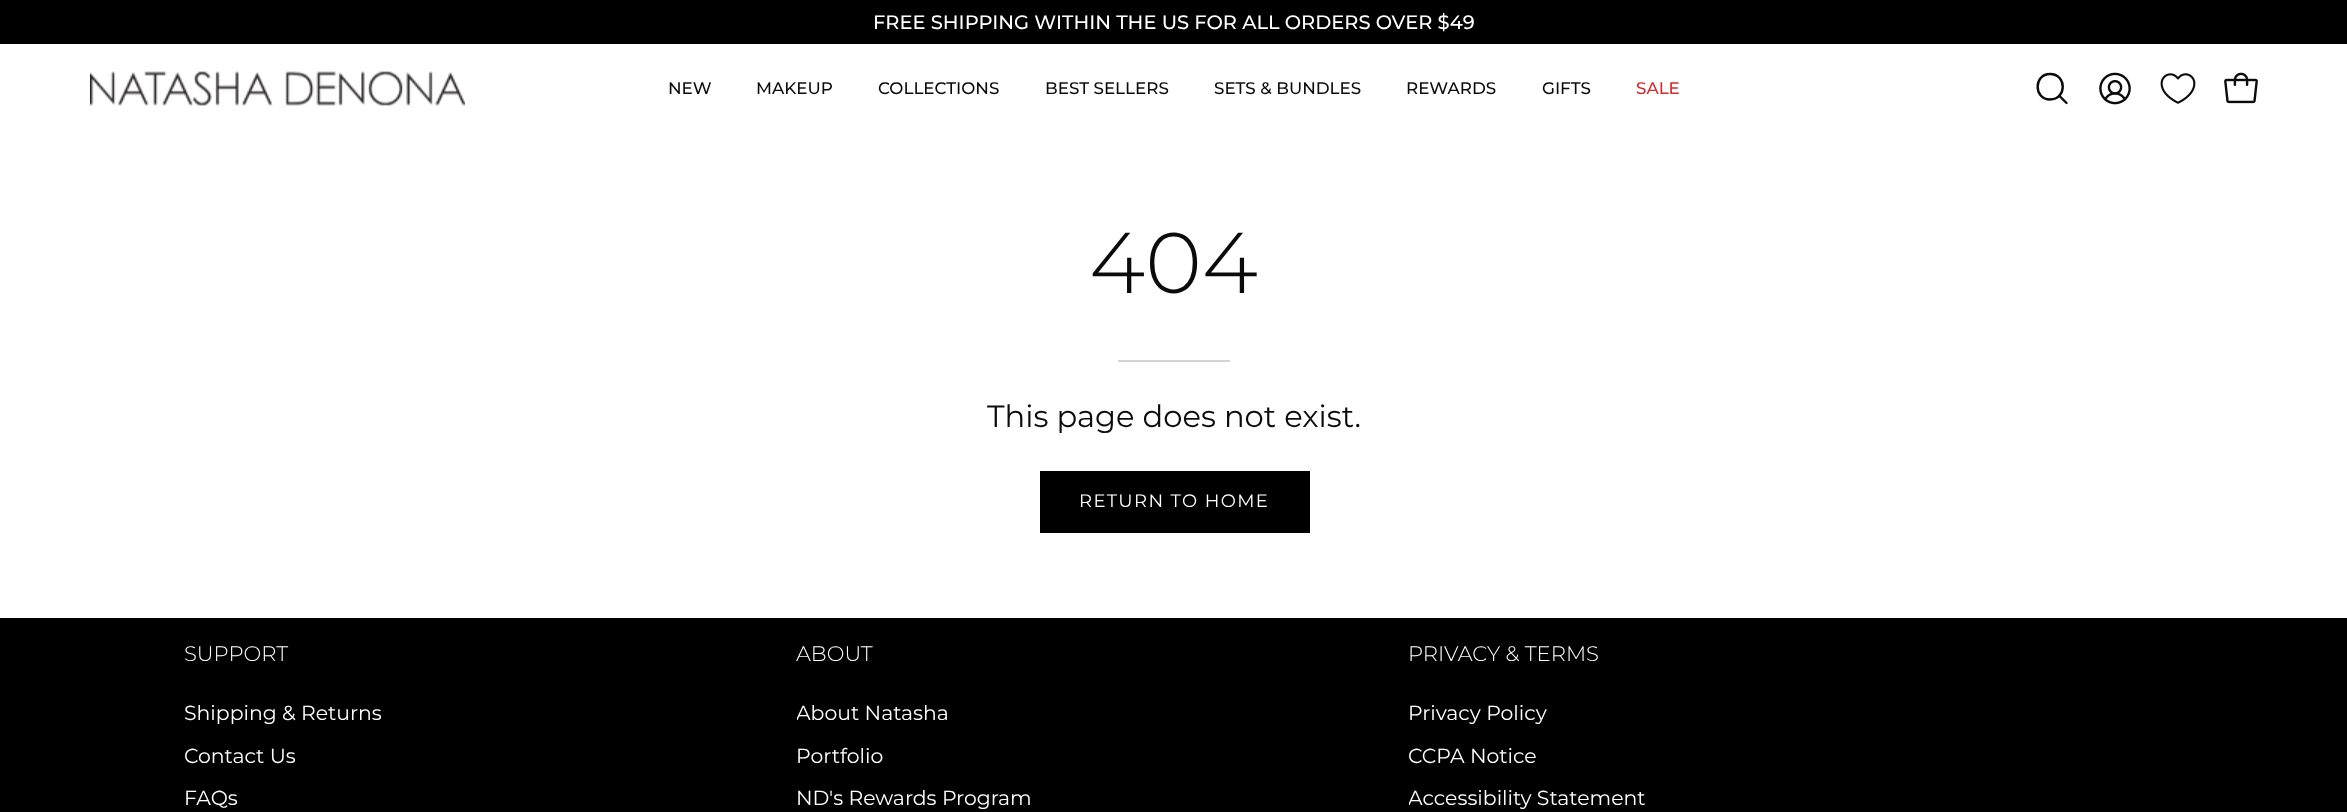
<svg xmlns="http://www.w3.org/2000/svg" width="2347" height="812">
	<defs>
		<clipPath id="clip1"><rect x="797" y="698" width="552" height="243" /></clipPath>
		<clipPath id="clip2"><rect x="1409" y="698" width="552" height="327" /></clipPath>
	</defs>
	<rect width="100%" height="100%" fill="#FFFFFF" />
	<rect x="0" y="0" width="2347" height="44" fill="#000000" />
	<text x="873" y="29" font-family="Montserrat" font-size="19.45" font-weight="500" fill="#FFFFFF">FREE SHIPPING WITHIN THE US FOR ALL ORDERS OVER $49</text>
	<image x="90" y="71" width="375" height="35" href="assets/img1.png" />
	<g font-family="Montserrat" font-size="16.75" font-weight="500" fill="#0B0B0B">
		<text x="668" y="94">NEW</text>
		<text x="756" y="94">MAKEUP</text>
		<text x="878" y="94">COLLECTIONS</text>
		<text x="1045" y="94">BEST SELLERS</text>
		<text x="1214" y="94">SETS &amp; BUNDLES</text>
		<text x="1406" y="94">REWARDS</text>
		<text x="1542" y="94">GIFTS</text>
	</g>
	<text x="1636" y="94" font-family="Montserrat" font-size="16.75" font-weight="500" fill="#D02E2E">SALE</text>
	<path d="M2050 99.5C2067 99.5 2067 74 2050 74C2033.5 74 2033.5 99.5 2050 99.5ZM2059 95.5L2066.5 103" fill="none" stroke="#0B0B0B" stroke-width="2.4" stroke-linecap="round" stroke-linejoin="round" />
	<image x="2099" y="72" width="32" height="33" href="assets/img2.png" />
	<image x="2160" y="73" width="36" height="31" href="assets/img3.png" />
	<image x="2224" y="72" width="34" height="32" href="assets/img4.png" />
	<text x="1089" y="293" font-family="Montserrat" font-size="86" font-weight="300" fill="#0B0B0B">404</text>
	<rect x="1118" y="360" width="112" height="2" fill="#D3D3D3" />
	<text x="987" y="427" font-family="Montserrat" font-size="30.6" fill="#0B0B0B">This page does not exist.</text>
	<rect x="1040" y="471" width="270" height="62" fill="#000000" />
	<text x="1079" y="507" font-family="Montserrat" font-size="18" letter-spacing="1.4" fill="#FFFFFF">RETURN TO HOME</text>
	<rect x="0" y="618" width="2347" height="194" fill="#000000" />
	<text x="184" y="661" font-family="Montserrat" font-size="21.1" font-weight="300" fill="#FFFFFF">SUPPORT</text>
	<g font-family="Montserrat" font-size="20.4" fill="#FFFFFF">
		<text x="184" y="720">Shipping &amp; Returns</text>
		<text x="184" y="763">Contact Us</text>
		<text x="184" y="805">FAQs</text>
	</g>
	<text x="796" y="661" font-family="Montserrat" font-size="21.1" font-weight="300" fill="#FFFFFF">ABOUT</text>
	<g clip-path="url(#clip1)">
		<text x="796" y="720" font-family="Montserrat" font-size="20.4" fill="#FFFFFF">About Natasha</text>
	</g>
	<g font-family="Montserrat" font-size="20.4" fill="#FFFFFF">
		<text x="796" y="763">Portfolio</text>
		<text x="796" y="805">ND's Rewards Program</text>
	</g>
	<text x="1408" y="661" font-family="Montserrat" font-size="21.1" font-weight="300" fill="#FFFFFF">PRIVACY &amp; TERMS</text>
	<g font-family="Montserrat" font-size="20.4" fill="#FFFFFF">
		<text x="1408" y="720">Privacy Policy</text>
		<text x="1408" y="763">CCPA Notice</text>
	</g>
	<g clip-path="url(#clip2)">
		<text x="1408" y="805" font-family="Montserrat" font-size="20.4" fill="#FFFFFF">Accessibility Statement</text>
	</g>
</svg>
